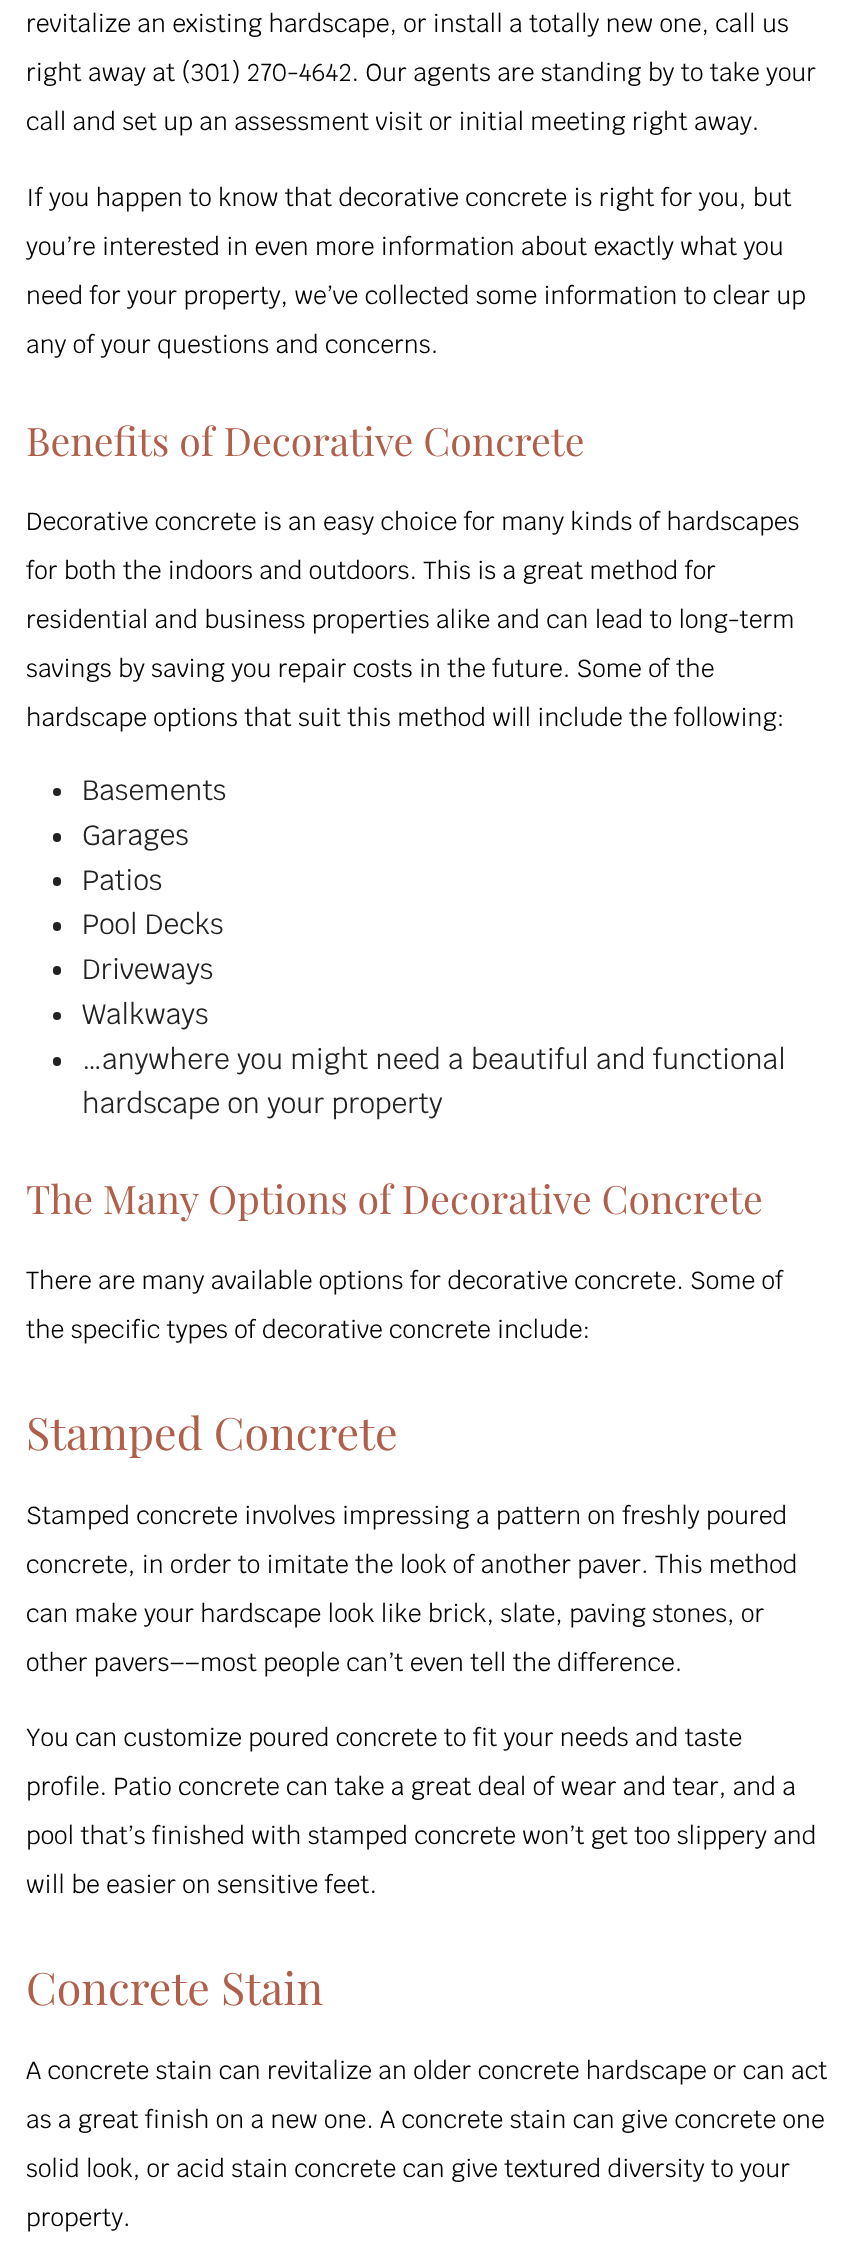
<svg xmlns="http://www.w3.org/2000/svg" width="853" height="2257">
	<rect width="100%" height="100%" fill="#FFFFFF" />
	<g font-family="Krub" font-size="24.5" fill="#000000">
		<text x="26" y="32">revitalize an existing hardscape, or install a totally new one, call us</text>
		<text x="26" y="81">right away at (301) 270-4642. Our agents are standing by to take your</text>
		<text x="26" y="130">call and set up an assessment visit or initial meeting right away.</text>
		<text x="26" y="206">If you happen to know that decorative concrete is right for you, but</text>
		<text x="26" y="255">you’re interested in even more information about exactly what you</text>
		<text x="26" y="304">need for your property, we’ve collected some information to clear up</text>
		<text x="26" y="353">any of your questions and concerns.</text>
	</g>
	<text x="26" y="456" font-family="Playfair Display" font-size="39.25" fill="#B05F4A">Benefits of Decorative Concrete</text>
	<g font-family="Krub" font-size="24.5" fill="#000000">
		<text x="26" y="530">Decorative concrete is an easy choice for many kinds of hardscapes</text>
		<text x="26" y="579">for both the indoors and outdoors. This is a great method for</text>
		<text x="26" y="628">residential and business properties alike and can lead to long-term</text>
		<text x="26" y="677">savings by saving you repair costs in the future. Some of the</text>
		<text x="26" y="726">hardscape options that suit this method will include the following:</text>
	</g>
	<circle cx="57" cy="792" r="4" fill="#222222" />
	<text x="82" y="800" font-family="Krub" font-size="28" fill="#222222">Basements</text>
	<rect x="53" y="833" width="8" height="9" rx="4" fill="#222222" />
	<text x="82" y="845" font-family="Krub" font-size="28" fill="#222222">Garages</text>
	<rect x="53" y="877" width="8" height="9" rx="4" fill="#222222" />
	<text x="82" y="890" font-family="Krub" font-size="28" fill="#222222">Patios</text>
	<rect x="53" y="922" width="8" height="9" rx="4" fill="#222222" />
	<text x="82" y="934" font-family="Krub" font-size="28" fill="#222222">Pool Decks</text>
	<rect x="53" y="966" width="8" height="9" rx="4" fill="#222222" />
	<text x="82" y="979" font-family="Krub" font-size="28" fill="#222222">Driveways</text>
	<circle cx="57" cy="1016" r="4" fill="#222222" />
	<text x="82" y="1024" font-family="Krub" font-size="28" fill="#222222">Walkways</text>
	<rect x="53" y="1057" width="8" height="9" rx="4" fill="#222222" />
	<g font-family="Krub" font-size="28" fill="#222222">
		<text x="82" y="1069">…anywhere you might need a beautiful and functional</text>
		<text x="82" y="1113">hardscape on your property</text>
	</g>
	<text x="26" y="1214" font-family="Playfair Display" font-size="39.25" fill="#B05F4A">The Many Options of Decorative Concrete</text>
	<g font-family="Krub" font-size="24.5" fill="#000000">
		<text x="26" y="1289">There are many available options for decorative concrete. Some of</text>
		<text x="26" y="1338">the specific types of decorative concrete include:</text>
	</g>
	<text x="26" y="1450" font-family="Playfair Display" font-size="44.75" fill="#B05F4A">Stamped Concrete</text>
	<g font-family="Krub" font-size="24.5" fill="#000000">
		<text x="26" y="1524">Stamped concrete involves impressing a pattern on freshly poured</text>
		<text x="26" y="1573">concrete, in order to imitate the look of another paver. This method</text>
		<text x="26" y="1622">can make your hardscape look like brick, slate, paving stones, or</text>
		<text x="26" y="1671">other pavers––most people can’t even tell the difference.</text>
		<text x="26" y="1746">You can customize poured concrete to fit your needs and taste</text>
		<text x="26" y="1795">profile. Patio concrete can take a great deal of wear and tear, and a</text>
		<text x="26" y="1844">pool that’s finished with stamped concrete won’t get too slippery and</text>
		<text x="26" y="1893">will be easier on sensitive feet.</text>
	</g>
	<text x="26" y="2005" font-family="Playfair Display" font-size="44.75" fill="#B05F4A">Concrete Stain</text>
	<g font-family="Krub" font-size="24.5" fill="#000000">
		<text x="26" y="2079">A concrete stain can revitalize an older concrete hardscape or can act</text>
		<text x="26" y="2128">as a great finish on a new one. A concrete stain can give concrete one</text>
		<text x="26" y="2177">solid look, or acid stain concrete can give textured diversity to your</text>
		<text x="26" y="2226">property.</text>
	</g>
</svg>
